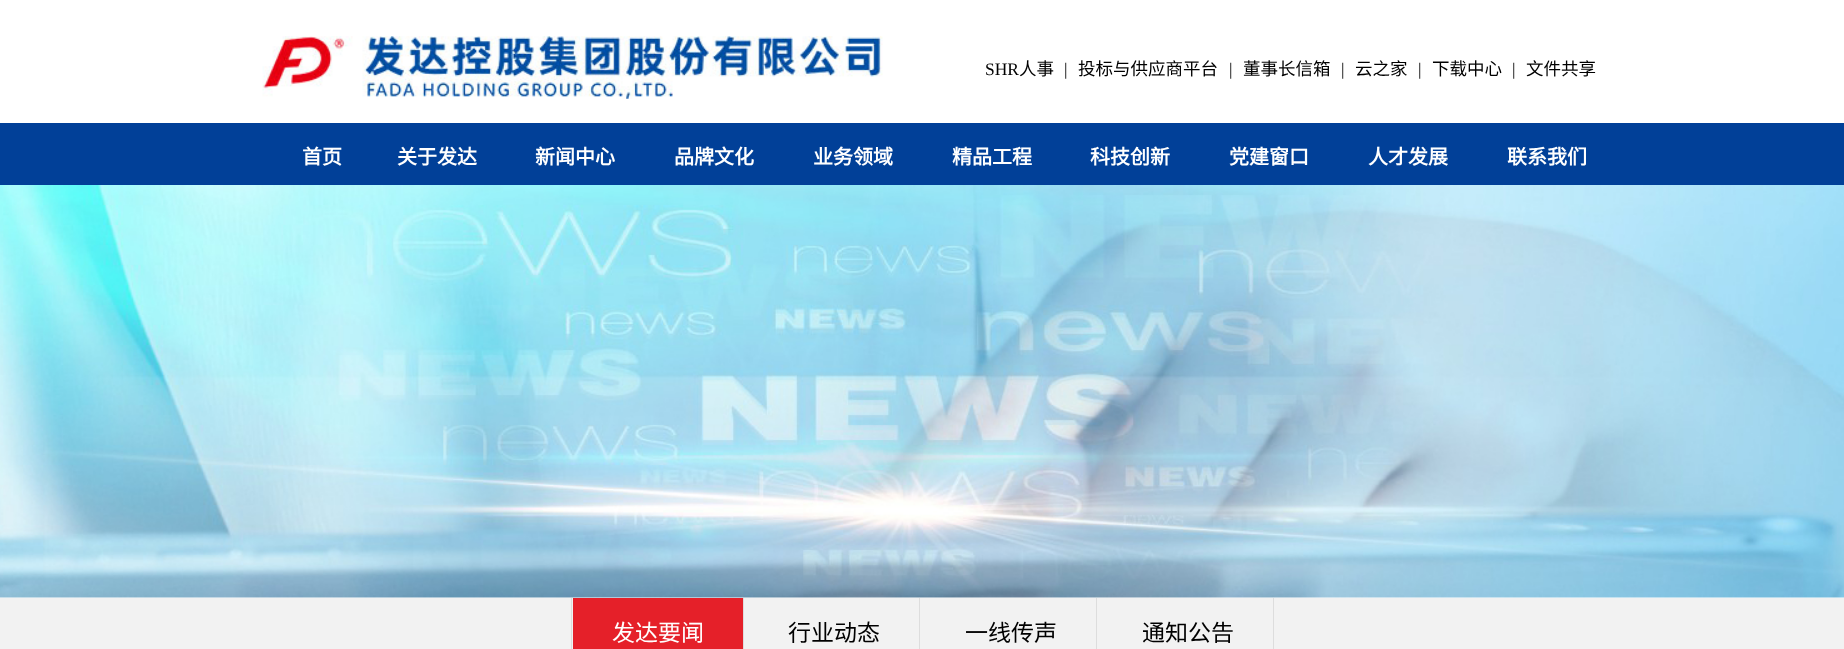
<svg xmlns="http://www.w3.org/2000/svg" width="1844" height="649">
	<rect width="100%" height="100%" fill="#FFFFFF" />
	<image x="262" y="36" width="621" height="63" href="assets/img1.png" />
	<text x="985" y="75" font-family="Liberation Serif" font-size="17.5" fill="#000000">SHR</text>
	<text x="1019" y="75" font-family="Noto Sans CJK SC" font-size="17.5" fill="#000000">人事</text>
	<text x="1064" y="75" font-family="Liberation Serif" font-size="17.5" fill="#000000">|</text>
	<text x="1078" y="75" font-family="Noto Sans CJK SC" font-size="17.5" fill="#000000">投标与供应商平台</text>
	<text x="1229" y="75" font-family="Liberation Serif" font-size="17.5" fill="#000000">|</text>
	<text x="1243" y="75" font-family="Noto Sans CJK SC" font-size="17.5" fill="#000000">董事长信箱</text>
	<text x="1341" y="75" font-family="Liberation Serif" font-size="17.5" fill="#000000">|</text>
	<text x="1355" y="75" font-family="Noto Sans CJK SC" font-size="17.5" fill="#000000">云之家</text>
	<text x="1418" y="75" font-family="Liberation Serif" font-size="17.5" fill="#000000">|</text>
	<text x="1432" y="75" font-family="Noto Sans CJK SC" font-size="17.5" fill="#000000">下载中心</text>
	<text x="1512" y="75" font-family="Liberation Serif" font-size="17.5" fill="#000000">|</text>
	<text x="1526" y="75" font-family="Noto Sans CJK SC" font-size="17.5" fill="#000000">文件共享</text>
	<rect x="0" y="123" width="1844" height="62" fill="#014098" />
	<g font-family="Noto Sans CJK SC" font-size="20" font-weight="700" fill="#FFFFFF">
		<text x="302" y="164">首页</text>
		<text x="397" y="164">关于发达</text>
		<text x="535" y="164">新闻中心</text>
		<text x="674" y="164">品牌文化</text>
		<text x="813" y="164">业务领域</text>
		<text x="952" y="164">精品工程</text>
		<text x="1090" y="164">科技创新</text>
		<text x="1229" y="164">党建窗口</text>
		<text x="1368" y="164">人才发展</text>
		<text x="1507" y="164">联系我们</text>
	</g>
	<image x="0" y="185" width="1844" height="413" href="assets/img2.png" />
	<rect x="0" y="598" width="1844" height="51" fill="#F2F2F2" />
	<rect x="743" y="598" width="1" height="51" fill="#DDDDDD" />
	<rect x="571" y="598" width="1" height="51" fill="#DDDDDD" />
	<rect x="573" y="598" width="170" height="51" fill="#E52029" />
	<text x="612" y="641" font-family="Noto Sans CJK SC" font-size="23" fill="#FFFFFF">发达要闻</text>
	<rect x="919" y="598" width="1" height="51" fill="#DDDDDD" />
	<text x="788" y="641" font-family="Noto Sans CJK SC" font-size="23" fill="#000000">行业动态</text>
	<rect x="1096" y="598" width="1" height="51" fill="#DDDDDD" />
	<text x="965" y="641" font-family="Noto Sans CJK SC" font-size="23" fill="#000000">一线传声</text>
	<rect x="1273" y="598" width="1" height="51" fill="#DDDDDD" />
	<text x="1142" y="641" font-family="Noto Sans CJK SC" font-size="23" fill="#000000">通知公告</text>
</svg>
